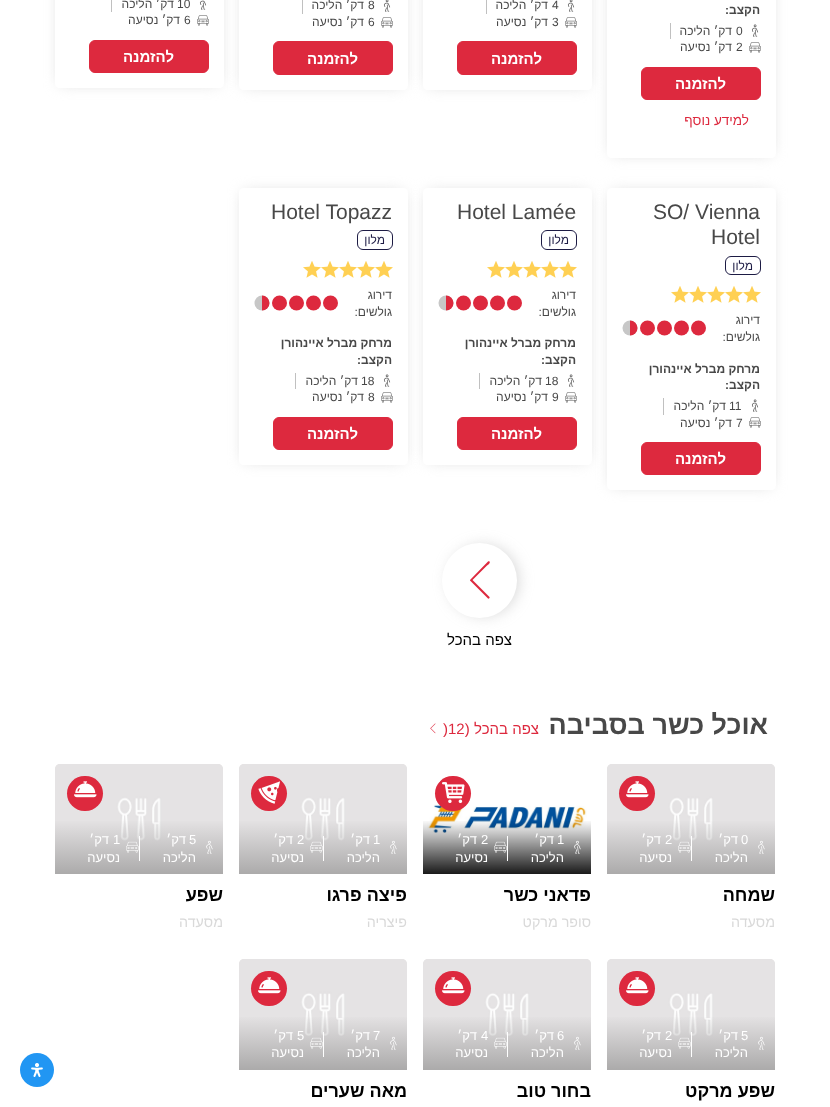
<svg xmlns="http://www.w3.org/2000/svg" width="830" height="1107">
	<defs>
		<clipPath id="clip1"><path d="M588 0H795V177H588ZM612-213H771C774-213 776-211 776-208V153C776 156 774 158 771 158H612C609 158 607 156 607 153V-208C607-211 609-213 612-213Z" clip-rule="evenodd" /></clipPath>
		<clipPath id="clip2"><path d="M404 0H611V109H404ZM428-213H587C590-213 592-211 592-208V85C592 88 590 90 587 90H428C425 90 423 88 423 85V-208C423-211 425-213 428-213Z" clip-rule="evenodd" /></clipPath>
		<clipPath id="clip3"><path d="M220 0H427V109H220ZM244-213H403C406-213 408-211 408-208V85C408 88 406 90 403 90H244C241 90 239 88 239 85V-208C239-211 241-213 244-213Z" clip-rule="evenodd" /></clipPath>
		<clipPath id="clip4"><path d="M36 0H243V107H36ZM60-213H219C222-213 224-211 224-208V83C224 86 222 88 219 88H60C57 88 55 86 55 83V-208C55-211 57-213 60-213Z" clip-rule="evenodd" /></clipPath>
		<clipPath id="clip5"><path d="M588 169H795V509H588ZM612 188H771C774 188 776 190 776 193V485C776 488 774 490 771 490H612C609 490 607 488 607 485V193C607 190 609 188 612 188Z" clip-rule="evenodd" /></clipPath>
		<clipPath id="clip6"><rect x="630" y="320" width="76" height="16" /></clipPath>
		<clipPath id="clip7"><path d="M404 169H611V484H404ZM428 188H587C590 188 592 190 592 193V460C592 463 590 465 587 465H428C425 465 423 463 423 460V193C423 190 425 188 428 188Z" clip-rule="evenodd" /></clipPath>
		<clipPath id="clip8"><rect x="446" y="295" width="76" height="16" /></clipPath>
		<clipPath id="clip9"><path d="M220 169H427V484H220ZM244 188H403C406 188 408 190 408 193V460C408 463 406 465 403 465H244C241 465 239 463 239 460V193C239 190 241 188 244 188Z" clip-rule="evenodd" /></clipPath>
		<clipPath id="clip10"><rect x="262" y="295" width="76" height="16" /></clipPath>
		<linearGradient id="g1" gradientUnits="userSpaceOnUse" x1="691" y1="764" x2="691" y2="880"><stop offset="0.01" stop-color="#000000" stop-opacity="0" /><stop offset="0.48" stop-color="#A5A4A4" stop-opacity="0" /><stop offset="1" stop-color="#A5A4A4" /></linearGradient>
		<linearGradient id="g2" gradientUnits="userSpaceOnUse" x1="507" y1="764" x2="507" y2="880"><stop offset="0.01" stop-color="#000000" stop-opacity="0" /><stop offset="0.48" stop-color="#000000" stop-opacity="0" /><stop offset="1" stop-color="#000000" /></linearGradient>
		<linearGradient id="g3" gradientUnits="userSpaceOnUse" x1="323" y1="764" x2="323" y2="880"><stop offset="0.01" stop-color="#000000" stop-opacity="0" /><stop offset="0.48" stop-color="#A5A4A4" stop-opacity="0" /><stop offset="1" stop-color="#A5A4A4" /></linearGradient>
		<linearGradient id="g4" gradientUnits="userSpaceOnUse" x1="139" y1="764" x2="139" y2="880"><stop offset="0.01" stop-color="#000000" stop-opacity="0" /><stop offset="0.48" stop-color="#A5A4A4" stop-opacity="0" /><stop offset="1" stop-color="#A5A4A4" /></linearGradient>
		<linearGradient id="g5" gradientUnits="userSpaceOnUse" x1="691" y1="959" x2="691" y2="1076"><stop offset="0.01" stop-color="#000000" stop-opacity="0" /><stop offset="0.48" stop-color="#A5A4A4" stop-opacity="0" /><stop offset="1" stop-color="#A5A4A4" /></linearGradient>
		<linearGradient id="g6" gradientUnits="userSpaceOnUse" x1="507" y1="959" x2="507" y2="1076"><stop offset="0.01" stop-color="#000000" stop-opacity="0" /><stop offset="0.48" stop-color="#A5A4A4" stop-opacity="0" /><stop offset="1" stop-color="#A5A4A4" /></linearGradient>
		<linearGradient id="g7" gradientUnits="userSpaceOnUse" x1="323" y1="959" x2="323" y2="1076"><stop offset="0.01" stop-color="#000000" stop-opacity="0" /><stop offset="0.48" stop-color="#A5A4A4" stop-opacity="0" /><stop offset="1" stop-color="#A5A4A4" /></linearGradient>
	</defs>
	<rect width="100%" height="100%" fill="#FFFFFF" />
	<g clip-path="url(#clip1)">
		<rect x="612" y="-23" width="159" height="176" fill="#D4D4D4" filter="blur(7.5px)" />
	</g>
	<text x="760" y="14" font-family="Liberation Sans" font-size="12" font-weight="700" direction="rtl" fill="#484848">הקצב:</text>
	<rect x="670" y="23" width="1" height="16" fill="#C0C0C0" />
	<image x="751" y="24" width="8" height="13" href="assets/img1.png" />
	<text x="736" y="35" font-family="Liberation Sans" font-size="12" fill="#484848">0</text>
	<text x="732" y="35" font-family="Liberation Sans" font-size="12" direction="rtl" fill="#484848">דק׳ הליכה</text>
	<image x="749" y="42" width="12" height="11" href="assets/img2.png" />
	<text x="736" y="51" font-family="Liberation Sans" font-size="12" fill="#484848">2</text>
	<text x="732" y="51" font-family="Liberation Sans" font-size="12" direction="rtl" fill="#484848">דק׳ נסיעה</text>
	<rect x="641.5" y="67.5" width="119" height="32" rx="5.5" fill="#DD293E" stroke="#DD293E" />
	<text x="726" y="89" font-family="Liberation Sans" font-size="15" font-weight="700" direction="rtl" fill="#FFFFFF">להזמנה</text>
	<text x="749" y="125" font-family="Liberation Sans" font-size="13.5" direction="rtl" fill="#DD293E">למידע נוסף</text>
	<g clip-path="url(#clip2)">
		<rect x="428" y="-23" width="159" height="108" fill="#D4D4D4" filter="blur(7.5px)" />
	</g>
	<rect x="486" y="0" width="1" height="14" fill="#C0C0C0" />
	<image x="567" y="0" width="8" height="12" href="assets/img3.png" />
	<text x="552" y="9" font-family="Liberation Sans" font-size="12" fill="#484848">4</text>
	<text x="548" y="9" font-family="Liberation Sans" font-size="12" direction="rtl" fill="#484848">דק׳ הליכה</text>
	<image x="565" y="17" width="12" height="11" href="assets/img2.png" />
	<text x="552" y="26" font-family="Liberation Sans" font-size="12" fill="#484848">3</text>
	<text x="548" y="26" font-family="Liberation Sans" font-size="12" direction="rtl" fill="#484848">דק׳ נסיעה</text>
	<rect x="457.5" y="41.5" width="119" height="33" rx="5.5" fill="#DD293E" stroke="#DD293E" />
	<text x="542" y="64" font-family="Liberation Sans" font-size="15" font-weight="700" direction="rtl" fill="#FFFFFF">להזמנה</text>
	<g clip-path="url(#clip3)">
		<rect x="244" y="-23" width="159" height="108" fill="#D4D4D4" filter="blur(7.5px)" />
	</g>
	<rect x="302" y="0" width="1" height="14" fill="#C0C0C0" />
	<image x="383" y="0" width="8" height="12" href="assets/img3.png" />
	<text x="368" y="9" font-family="Liberation Sans" font-size="12" fill="#484848">8</text>
	<text x="364" y="9" font-family="Liberation Sans" font-size="12" direction="rtl" fill="#484848">דק׳ הליכה</text>
	<image x="381" y="17" width="12" height="11" href="assets/img2.png" />
	<text x="368" y="26" font-family="Liberation Sans" font-size="12" fill="#484848">6</text>
	<text x="364" y="26" font-family="Liberation Sans" font-size="12" direction="rtl" fill="#484848">דק׳ נסיעה</text>
	<rect x="273.5" y="41.5" width="119" height="33" rx="5.5" fill="#DD293E" stroke="#DD293E" />
	<text x="358" y="64" font-family="Liberation Sans" font-size="15" font-weight="700" direction="rtl" fill="#FFFFFF">להזמנה</text>
	<g clip-path="url(#clip4)">
		<rect x="60" y="-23" width="159" height="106" fill="#D4D4D4" filter="blur(7.5px)" />
	</g>
	<rect x="111" y="0" width="1" height="12" fill="#C0C0C0" />
	<image x="199" y="0" width="8" height="10" href="assets/img4.png" />
	<text x="177" y="8" font-family="Liberation Sans" font-size="12" fill="#484848">10</text>
	<text x="174" y="8" font-family="Liberation Sans" font-size="12" direction="rtl" fill="#484848">דק׳ הליכה</text>
	<image x="197" y="15" width="12" height="11" href="assets/img2.png" />
	<text x="184" y="24" font-family="Liberation Sans" font-size="12" fill="#484848">6</text>
	<text x="180" y="24" font-family="Liberation Sans" font-size="12" direction="rtl" fill="#484848">דק׳ נסיעה</text>
	<rect x="89.5" y="40.5" width="119" height="32" rx="5.5" fill="#DD293E" stroke="#DD293E" />
	<text x="174" y="62" font-family="Liberation Sans" font-size="15" font-weight="700" direction="rtl" fill="#FFFFFF">להזמנה</text>
	<g clip-path="url(#clip5)">
		<rect x="612" y="193" width="159" height="292" fill="#D4D4D4" filter="blur(7.5px)" />
	</g>
	<g font-family="Liberation Sans" font-size="21" fill="#484848">
		<text x="653" y="219">SO/ Vienna</text>
		<text x="711" y="244">Hotel</text>
	</g>
	<rect x="725.5" y="256.5" width="35" height="18" rx="5.5" fill="none" stroke="#1D1B44" />
	<text x="753" y="270" font-family="Liberation Sans" font-size="12" direction="rtl" fill="#1D1B44">מלון</text>
	<image x="743" y="286" width="18" height="17" href="assets/img5.png" />
	<image x="725" y="286" width="18" height="17" href="assets/img5.png" />
	<image x="707" y="286" width="18" height="17" href="assets/img5.png" />
	<image x="689" y="286" width="18" height="17" href="assets/img5.png" />
	<image x="671" y="286" width="18" height="17" href="assets/img5.png" />
	<g font-family="Liberation Sans" font-size="12" direction="rtl" fill="#484848">
		<text x="760" y="324">דירוג</text>
		<text x="760" y="341">גולשים:</text>
	</g>
	<circle cx="630" cy="328" r="7.5" fill="#C7C7C7" />
	<circle cx="698.5" cy="328" r="7.5" fill="#DD293E" />
	<circle cx="681.5" cy="328" r="7.5" fill="#DD293E" />
	<circle cx="664.5" cy="328" r="7.5" fill="#DD293E" />
	<circle cx="647.5" cy="328" r="7.5" fill="#DD293E" />
	<g clip-path="url(#clip6)">
		<circle cx="630" cy="328" r="7.5" fill="#DD293E" />
	</g>
	<g font-family="Liberation Sans" font-size="12" font-weight="700" direction="rtl" fill="#484848">
		<text x="760" y="373">מרחק מברל איינהורן</text>
		<text x="760" y="389">הקצב:</text>
	</g>
	<rect x="663" y="398" width="1" height="17" fill="#C0C0C0" />
	<image x="751" y="399" width="8" height="13" href="assets/img1.png" />
	<text x="729" y="410" font-family="Liberation Sans" font-size="12" fill="#484848">11</text>
	<text x="726" y="410" font-family="Liberation Sans" font-size="12" direction="rtl" fill="#484848">דק׳ הליכה</text>
	<image x="749" y="417" width="12" height="11" href="assets/img2.png" />
	<text x="736" y="427" font-family="Liberation Sans" font-size="12" fill="#484848">7</text>
	<text x="732" y="427" font-family="Liberation Sans" font-size="12" direction="rtl" fill="#484848">דק׳ נסיעה</text>
	<rect x="641.5" y="442.5" width="119" height="32" rx="5.5" fill="#DD293E" stroke="#DD293E" />
	<text x="726" y="464" font-family="Liberation Sans" font-size="15" font-weight="700" direction="rtl" fill="#FFFFFF">להזמנה</text>
	<g clip-path="url(#clip7)">
		<rect x="428" y="193" width="159" height="267" fill="#D4D4D4" filter="blur(7.5px)" />
	</g>
	<text x="457" y="219" font-family="Liberation Sans" font-size="21" fill="#484848">Hotel Lamée</text>
	<rect x="541.5" y="230.5" width="35" height="19" rx="5.5" fill="none" stroke="#1D1B44" />
	<text x="569" y="244" font-family="Liberation Sans" font-size="12" direction="rtl" fill="#1D1B44">מלון</text>
	<image x="559" y="261" width="18" height="17" href="assets/img5.png" />
	<image x="541" y="261" width="18" height="17" href="assets/img5.png" />
	<image x="523" y="261" width="18" height="17" href="assets/img5.png" />
	<image x="505" y="261" width="18" height="17" href="assets/img5.png" />
	<image x="487" y="261" width="18" height="17" href="assets/img5.png" />
	<g font-family="Liberation Sans" font-size="12" direction="rtl" fill="#484848">
		<text x="576" y="299">דירוג</text>
		<text x="576" y="316">גולשים:</text>
	</g>
	<circle cx="446" cy="303" r="7.5" fill="#C7C7C7" />
	<circle cx="514.5" cy="303" r="7.5" fill="#DD293E" />
	<circle cx="497.5" cy="303" r="7.5" fill="#DD293E" />
	<circle cx="480.5" cy="303" r="7.5" fill="#DD293E" />
	<circle cx="463.5" cy="303" r="7.5" fill="#DD293E" />
	<g clip-path="url(#clip8)">
		<circle cx="446" cy="303" r="7.5" fill="#DD293E" />
	</g>
	<g font-family="Liberation Sans" font-size="12" font-weight="700" direction="rtl" fill="#484848">
		<text x="576" y="347">מרחק מברל איינהורן</text>
		<text x="576" y="364">הקצב:</text>
	</g>
	<rect x="479" y="373" width="1" height="16" fill="#C0C0C0" />
	<image x="567" y="374" width="8" height="13" href="assets/img1.png" />
	<text x="545" y="385" font-family="Liberation Sans" font-size="12" fill="#484848">18</text>
	<text x="542" y="385" font-family="Liberation Sans" font-size="12" direction="rtl" fill="#484848">דק׳ הליכה</text>
	<image x="565" y="392" width="12" height="11" href="assets/img2.png" />
	<text x="552" y="401" font-family="Liberation Sans" font-size="12" fill="#484848">9</text>
	<text x="548" y="401" font-family="Liberation Sans" font-size="12" direction="rtl" fill="#484848">דק׳ נסיעה</text>
	<rect x="457.5" y="417.5" width="119" height="32" rx="5.5" fill="#DD293E" stroke="#DD293E" />
	<text x="542" y="439" font-family="Liberation Sans" font-size="15" font-weight="700" direction="rtl" fill="#FFFFFF">להזמנה</text>
	<g clip-path="url(#clip9)">
		<rect x="244" y="193" width="159" height="267" fill="#D4D4D4" filter="blur(7.5px)" />
	</g>
	<text x="271" y="219" font-family="Liberation Sans" font-size="21" fill="#484848">Hotel Topazz</text>
	<rect x="357.5" y="230.5" width="35" height="19" rx="5.5" fill="none" stroke="#1D1B44" />
	<text x="385" y="244" font-family="Liberation Sans" font-size="12" direction="rtl" fill="#1D1B44">מלון</text>
	<image x="375" y="261" width="18" height="17" href="assets/img5.png" />
	<image x="357" y="261" width="18" height="17" href="assets/img5.png" />
	<image x="339" y="261" width="18" height="17" href="assets/img5.png" />
	<image x="321" y="261" width="18" height="17" href="assets/img5.png" />
	<image x="303" y="261" width="18" height="17" href="assets/img5.png" />
	<g font-family="Liberation Sans" font-size="12" direction="rtl" fill="#484848">
		<text x="392" y="299">דירוג</text>
		<text x="392" y="316">גולשים:</text>
	</g>
	<circle cx="262" cy="303" r="7.5" fill="#C7C7C7" />
	<circle cx="330.5" cy="303" r="7.5" fill="#DD293E" />
	<circle cx="313.5" cy="303" r="7.5" fill="#DD293E" />
	<circle cx="296.5" cy="303" r="7.5" fill="#DD293E" />
	<circle cx="279.5" cy="303" r="7.5" fill="#DD293E" />
	<g clip-path="url(#clip10)">
		<circle cx="262" cy="303" r="7.5" fill="#DD293E" />
	</g>
	<g font-family="Liberation Sans" font-size="12" font-weight="700" direction="rtl" fill="#484848">
		<text x="392" y="347">מרחק מברל איינהורן</text>
		<text x="392" y="364">הקצב:</text>
	</g>
	<rect x="295" y="373" width="1" height="16" fill="#C0C0C0" />
	<image x="383" y="374" width="8" height="13" href="assets/img1.png" />
	<text x="361" y="385" font-family="Liberation Sans" font-size="12" fill="#484848">18</text>
	<text x="358" y="385" font-family="Liberation Sans" font-size="12" direction="rtl" fill="#484848">דק׳ הליכה</text>
	<image x="381" y="392" width="12" height="11" href="assets/img2.png" />
	<text x="368" y="401" font-family="Liberation Sans" font-size="12" fill="#484848">8</text>
	<text x="364" y="401" font-family="Liberation Sans" font-size="12" direction="rtl" fill="#484848">דק׳ נסיעה</text>
	<rect x="273.5" y="417.5" width="119" height="32" rx="5.5" fill="#DD293E" stroke="#DD293E" />
	<text x="358" y="439" font-family="Liberation Sans" font-size="15" font-weight="700" direction="rtl" fill="#FFFFFF">להזמנה</text>
	<rect x="449" y="546" width="69" height="69" rx="34.5" fill="#A8A8A8" fill-opacity="0.5" filter="blur(7.5px)" />
	<circle cx="479.5" cy="580.5" r="37.5" fill="#FFFFFF" />
	<path d="M472.5 580L489.5 597C490 598 489 599 488 598.5L470 580.5V580L488 561.5C488.5 561 489 561 489.5 561.5C491 563 487 565.5 486.5 566Z" fill="#DD293E" />
	<text x="512" y="645" font-family="Liberation Sans" font-size="15" direction="rtl" fill="#000000">צפה בהכל</text>
	<text x="768" y="734" font-family="Liberation Sans" font-size="27" font-weight="700" direction="rtl" fill="#484848">אוכל כשר בסביבה</text>
	<text x="539" y="734" font-family="Liberation Sans" font-size="15" direction="rtl" fill="#DD293E">צפה בהכל (</text>
	<text x="443" y="734" font-family="Liberation Sans" font-size="15" fill="#DD293E">)12</text>
	<image x="430" y="723" width="6" height="11" href="assets/img6.png" />
	<image x="607" y="764" width="168" height="110" href="assets/img7.png" />
	<image x="607" y="764" width="168" height="77" href="assets/img8.png" />
	<rect x="619" y="776" width="36" height="35" rx="17.5" fill="#DD293E" />
	<image x="626" y="781" width="23" height="17" href="assets/img9.png" />
	<rect x="607" y="821" width="168" height="53" fill="url(#g1)" />
	<image x="758" y="840" width="7" height="14" href="assets/img10.png" />
	<text x="741" y="844" font-family="Liberation Sans" font-size="13" fill="#FFFFFF">0</text>
	<text x="738" y="844" font-family="Liberation Sans" font-size="13" direction="rtl" fill="#FFFFFF">דק׳</text>
	<rect x="691" y="836" width="1" height="25" fill="#FFFFFF" />
	<text x="748" y="862" font-family="Liberation Sans" font-size="13" direction="rtl" fill="#FFFFFF">הליכה</text>
	<text x="665" y="844" font-family="Liberation Sans" font-size="13" fill="#FFFFFF">2</text>
	<text x="661" y="844" font-family="Liberation Sans" font-size="13" direction="rtl" fill="#FFFFFF">דק׳</text>
	<image x="678" y="841" width="13" height="12" href="assets/img11.png" />
	<text x="672" y="862" font-family="Liberation Sans" font-size="13" direction="rtl" fill="#FFFFFF">נסיעה</text>
	<text x="775" y="901" font-family="Liberation Sans" font-size="18" font-weight="700" direction="rtl" fill="#000000">שמחה</text>
	<text x="775" y="927" font-family="Liberation Sans" font-size="14.25" direction="rtl" fill="#D9D9D9">מסעדה</text>
	<image x="427" y="804" width="160" height="29" href="assets/img13.png" />
	<rect x="435" y="776" width="36" height="35" rx="17.5" fill="#DD293E" />
	<image x="442" y="782" width="23" height="22" href="assets/img12.png" />
	<rect x="423" y="821" width="168" height="53" fill="url(#g2)" />
	<image x="574" y="840" width="7" height="14" href="assets/img14.png" />
	<text x="557" y="844" font-family="Liberation Sans" font-size="13" fill="#FFFFFF">1</text>
	<text x="554" y="844" font-family="Liberation Sans" font-size="13" direction="rtl" fill="#FFFFFF">דק׳</text>
	<rect x="507" y="836" width="1" height="25" fill="#FFFFFF" />
	<text x="564" y="862" font-family="Liberation Sans" font-size="13" direction="rtl" fill="#FFFFFF">הליכה</text>
	<text x="481" y="844" font-family="Liberation Sans" font-size="13" fill="#FFFFFF">2</text>
	<text x="477" y="844" font-family="Liberation Sans" font-size="13" direction="rtl" fill="#FFFFFF">דק׳</text>
	<image x="494" y="841" width="13" height="12" href="assets/img15.png" />
	<text x="488" y="862" font-family="Liberation Sans" font-size="13" direction="rtl" fill="#FFFFFF">נסיעה</text>
	<text x="591" y="901" font-family="Liberation Sans" font-size="18" font-weight="700" direction="rtl" fill="#000000">פדאני כשר</text>
	<text x="591" y="927" font-family="Liberation Sans" font-size="14.25" direction="rtl" fill="#D9D9D9">סופר מרקט</text>
	<image x="239" y="764" width="168" height="110" href="assets/img7.png" />
	<image x="239" y="764" width="168" height="77" href="assets/img8.png" />
	<rect x="251" y="776" width="36" height="35" rx="17.5" fill="#DD293E" />
	<image x="258" y="781" width="22" height="23" href="assets/img16.png" />
	<rect x="239" y="821" width="168" height="53" fill="url(#g3)" />
	<image x="390" y="840" width="7" height="14" href="assets/img10.png" />
	<text x="373" y="844" font-family="Liberation Sans" font-size="13" fill="#FFFFFF">1</text>
	<text x="370" y="844" font-family="Liberation Sans" font-size="13" direction="rtl" fill="#FFFFFF">דק׳</text>
	<rect x="323" y="836" width="1" height="25" fill="#FFFFFF" />
	<text x="380" y="862" font-family="Liberation Sans" font-size="13" direction="rtl" fill="#FFFFFF">הליכה</text>
	<text x="297" y="844" font-family="Liberation Sans" font-size="13" fill="#FFFFFF">2</text>
	<text x="293" y="844" font-family="Liberation Sans" font-size="13" direction="rtl" fill="#FFFFFF">דק׳</text>
	<image x="310" y="841" width="13" height="12" href="assets/img11.png" />
	<text x="304" y="862" font-family="Liberation Sans" font-size="13" direction="rtl" fill="#FFFFFF">נסיעה</text>
	<text x="407" y="901" font-family="Liberation Sans" font-size="18" font-weight="700" direction="rtl" fill="#000000">פיצה פרגו</text>
	<text x="407" y="927" font-family="Liberation Sans" font-size="14.25" direction="rtl" fill="#D9D9D9">פיצריה</text>
	<image x="55" y="764" width="168" height="110" href="assets/img7.png" />
	<image x="55" y="764" width="168" height="77" href="assets/img8.png" />
	<rect x="67" y="776" width="36" height="35" rx="17.5" fill="#DD293E" />
	<image x="74" y="781" width="23" height="17" href="assets/img9.png" />
	<rect x="55" y="821" width="168" height="53" fill="url(#g4)" />
	<image x="206" y="840" width="7" height="14" href="assets/img10.png" />
	<text x="189" y="844" font-family="Liberation Sans" font-size="13" fill="#FFFFFF">5</text>
	<text x="186" y="844" font-family="Liberation Sans" font-size="13" direction="rtl" fill="#FFFFFF">דק׳</text>
	<rect x="139" y="836" width="1" height="25" fill="#FFFFFF" />
	<text x="196" y="862" font-family="Liberation Sans" font-size="13" direction="rtl" fill="#FFFFFF">הליכה</text>
	<text x="113" y="844" font-family="Liberation Sans" font-size="13" fill="#FFFFFF">1</text>
	<text x="109" y="844" font-family="Liberation Sans" font-size="13" direction="rtl" fill="#FFFFFF">דק׳</text>
	<image x="126" y="841" width="13" height="12" href="assets/img11.png" />
	<text x="120" y="862" font-family="Liberation Sans" font-size="13" direction="rtl" fill="#FFFFFF">נסיעה</text>
	<text x="223" y="901" font-family="Liberation Sans" font-size="18" font-weight="700" direction="rtl" fill="#000000">שפע</text>
	<text x="223" y="927" font-family="Liberation Sans" font-size="14.25" direction="rtl" fill="#D9D9D9">מסעדה</text>
	<image x="607" y="959" width="168" height="111" href="assets/img17.png" />
	<image x="607" y="959" width="168" height="77" href="assets/img18.png" />
	<rect x="619" y="971" width="36" height="35" rx="17.5" fill="#DD293E" />
	<image x="626" y="977" width="23" height="17" href="assets/img9.png" />
	<rect x="607" y="1017" width="168" height="53" fill="url(#g5)" />
	<image x="758" y="1036" width="7" height="14" href="assets/img19.png" />
	<text x="741" y="1040" font-family="Liberation Sans" font-size="13" fill="#FFFFFF">5</text>
	<text x="738" y="1040" font-family="Liberation Sans" font-size="13" direction="rtl" fill="#FFFFFF">דק׳</text>
	<rect x="691" y="1032" width="1" height="25" fill="#FFFFFF" />
	<text x="748" y="1057" font-family="Liberation Sans" font-size="13" direction="rtl" fill="#FFFFFF">הליכה</text>
	<text x="665" y="1040" font-family="Liberation Sans" font-size="13" fill="#FFFFFF">2</text>
	<text x="661" y="1040" font-family="Liberation Sans" font-size="13" direction="rtl" fill="#FFFFFF">דק׳</text>
	<image x="678" y="1037" width="13" height="12" href="assets/img20.png" />
	<text x="672" y="1057" font-family="Liberation Sans" font-size="13" direction="rtl" fill="#FFFFFF">נסיעה</text>
	<text x="775" y="1097" font-family="Liberation Sans" font-size="18" font-weight="700" direction="rtl" fill="#000000">שפע מרקט</text>
	<image x="423" y="959" width="168" height="111" href="assets/img17.png" />
	<image x="423" y="959" width="168" height="77" href="assets/img18.png" />
	<rect x="435" y="971" width="36" height="35" rx="17.5" fill="#DD293E" />
	<image x="442" y="977" width="23" height="17" href="assets/img9.png" />
	<rect x="423" y="1017" width="168" height="53" fill="url(#g6)" />
	<image x="574" y="1036" width="7" height="14" href="assets/img19.png" />
	<text x="557" y="1040" font-family="Liberation Sans" font-size="13" fill="#FFFFFF">6</text>
	<text x="554" y="1040" font-family="Liberation Sans" font-size="13" direction="rtl" fill="#FFFFFF">דק׳</text>
	<rect x="507" y="1032" width="1" height="25" fill="#FFFFFF" />
	<text x="564" y="1057" font-family="Liberation Sans" font-size="13" direction="rtl" fill="#FFFFFF">הליכה</text>
	<text x="481" y="1040" font-family="Liberation Sans" font-size="13" fill="#FFFFFF">4</text>
	<text x="477" y="1040" font-family="Liberation Sans" font-size="13" direction="rtl" fill="#FFFFFF">דק׳</text>
	<image x="494" y="1037" width="13" height="12" href="assets/img20.png" />
	<text x="488" y="1057" font-family="Liberation Sans" font-size="13" direction="rtl" fill="#FFFFFF">נסיעה</text>
	<text x="591" y="1097" font-family="Liberation Sans" font-size="18" font-weight="700" direction="rtl" fill="#000000">בחור טוב</text>
	<image x="239" y="959" width="168" height="111" href="assets/img17.png" />
	<image x="239" y="959" width="168" height="77" href="assets/img18.png" />
	<rect x="251" y="971" width="36" height="35" rx="17.5" fill="#DD293E" />
	<image x="258" y="977" width="23" height="17" href="assets/img9.png" />
	<rect x="239" y="1017" width="168" height="53" fill="url(#g7)" />
	<image x="390" y="1036" width="7" height="14" href="assets/img19.png" />
	<text x="373" y="1040" font-family="Liberation Sans" font-size="13" fill="#FFFFFF">7</text>
	<text x="370" y="1040" font-family="Liberation Sans" font-size="13" direction="rtl" fill="#FFFFFF">דק׳</text>
	<rect x="323" y="1032" width="1" height="25" fill="#FFFFFF" />
	<text x="380" y="1057" font-family="Liberation Sans" font-size="13" direction="rtl" fill="#FFFFFF">הליכה</text>
	<text x="297" y="1040" font-family="Liberation Sans" font-size="13" fill="#FFFFFF">5</text>
	<text x="293" y="1040" font-family="Liberation Sans" font-size="13" direction="rtl" fill="#FFFFFF">דק׳</text>
	<image x="310" y="1037" width="13" height="12" href="assets/img20.png" />
	<text x="304" y="1057" font-family="Liberation Sans" font-size="13" direction="rtl" fill="#FFFFFF">נסיעה</text>
	<text x="407" y="1097" font-family="Liberation Sans" font-size="18" font-weight="700" direction="rtl" fill="#000000">מאה שערים</text>
	<circle cx="37" cy="1070" r="17" fill="#2196F3" />
	<image x="31" y="1063" width="12" height="14" href="assets/img21.png" />
</svg>
